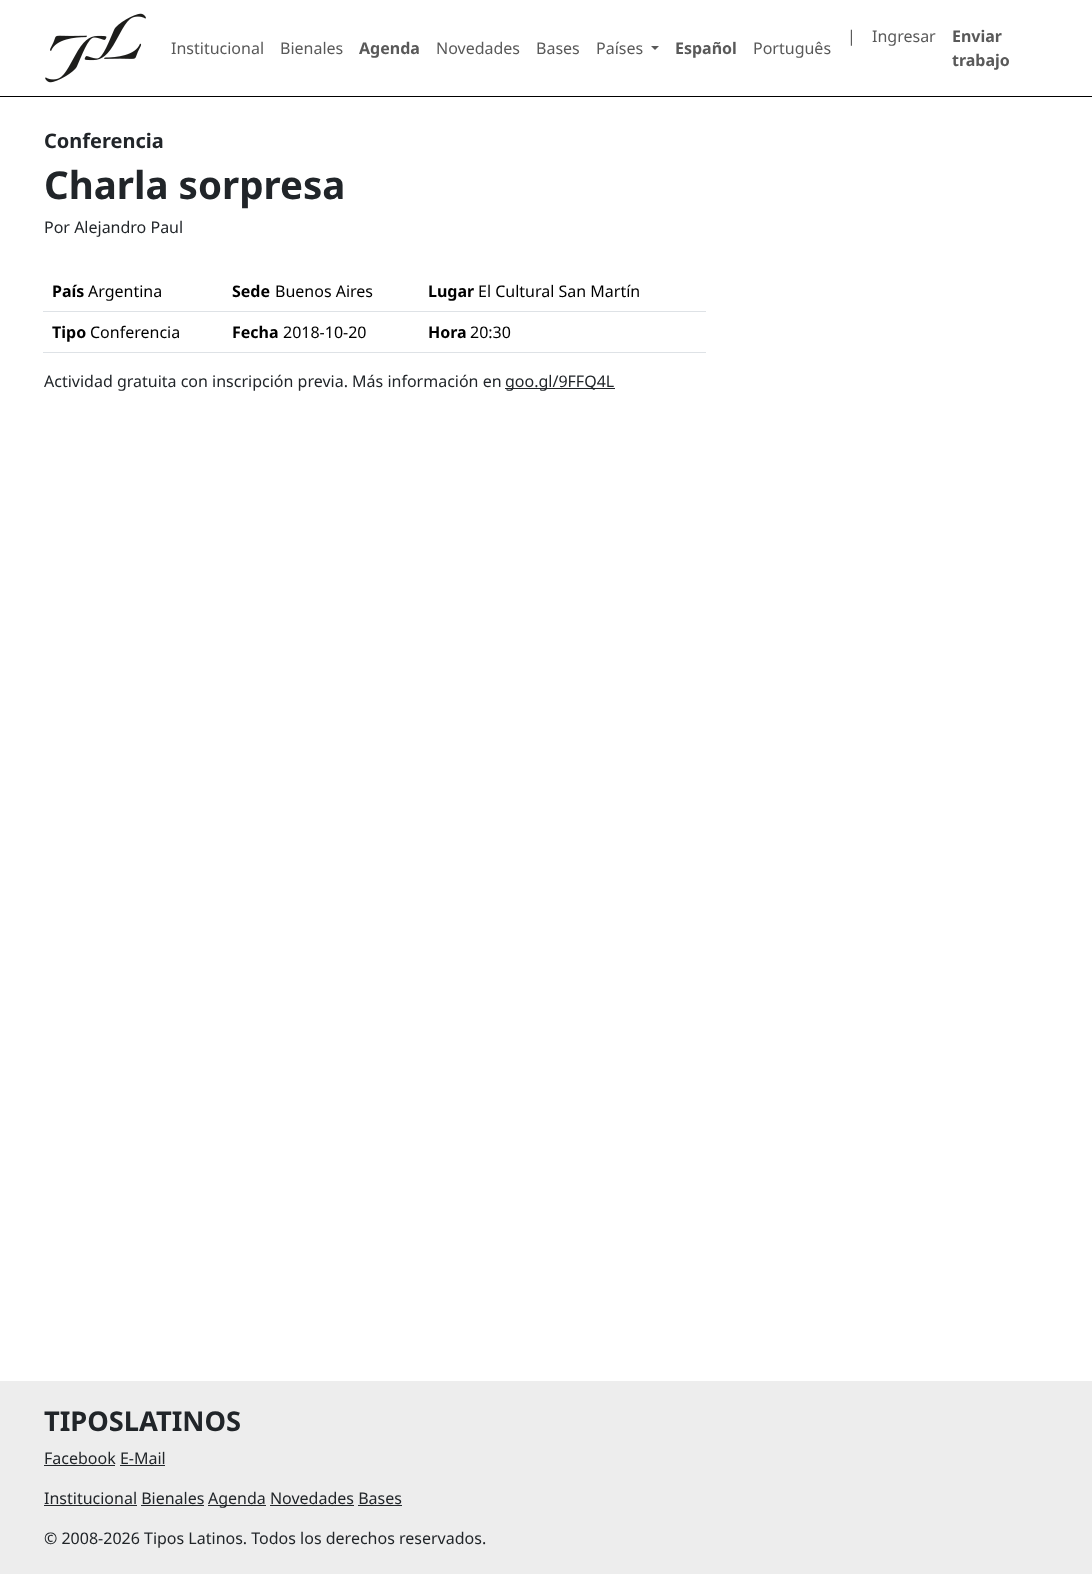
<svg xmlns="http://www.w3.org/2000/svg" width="1092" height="1574">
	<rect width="100%" height="100%" fill="#FFFFFF" />
	<rect x="0" y="96" width="1092" height="1" fill="#000000" />
	<image x="45" y="13" width="101" height="70" href="assets/img1.png" />
	<g font-family="Noto Sans" font-size="16" fill="#595959">
		<text x="171" y="54">Institucional</text>
		<text x="280" y="54">Bienales</text>
	</g>
	<text x="359" y="54" font-family="Noto Sans" font-size="16" font-weight="700" fill="#595959">Agenda</text>
	<g font-family="Noto Sans" font-size="16" fill="#595959">
		<text x="436" y="54">Novedades</text>
		<text x="536" y="54">Bases</text>
		<text x="596" y="54">Países</text>
	</g>
	<path d="M651 46H659L655 50Z" fill="#595959" />
	<text x="675" y="54" font-family="Noto Sans" font-size="16" font-weight="700" fill="#595959">Español</text>
	<g font-family="Noto Sans" font-size="16" fill="#595959">
		<text x="753" y="54">Português</text>
		<text x="847" y="42">|</text>
		<text x="872" y="42">Ingresar</text>
	</g>
	<g font-family="Noto Sans" font-size="16" font-weight="700" fill="#595959">
		<text x="952" y="42">Enviar</text>
		<text x="952" y="66">trabajo</text>
	</g>
	<text x="44" y="148" font-family="Noto Sans" font-size="20" font-weight="700" fill="#212529">Conferencia</text>
	<text x="44" y="199" font-family="Noto Sans" font-size="38.5" font-weight="700" fill="#212529">Charla sorpresa</text>
	<text x="44" y="233" font-family="Noto Sans" font-size="16" fill="#212529">Por Alejandro Paul</text>
	<text x="52" y="297" font-family="Noto Sans" font-size="16" font-weight="700" fill="#000000">País</text>
	<text x="88" y="297" font-family="Noto Sans" font-size="16" fill="#000000">Argentina</text>
	<text x="232" y="297" font-family="Noto Sans" font-size="16" font-weight="700" fill="#000000">Sede</text>
	<text x="275" y="297" font-family="Noto Sans" font-size="16" fill="#000000">Buenos Aires</text>
	<rect x="43" y="311" width="663" height="1" fill="#DEE2E6" />
	<text x="428" y="297" font-family="Noto Sans" font-size="16" font-weight="700" fill="#000000">Lugar</text>
	<text x="478" y="297" font-family="Noto Sans" font-size="16" fill="#000000">El Cultural San Martín</text>
	<text x="52" y="338" font-family="Noto Sans" font-size="16" font-weight="700" fill="#000000">Tipo</text>
	<text x="90" y="338" font-family="Noto Sans" font-size="16" fill="#000000">Conferencia</text>
	<text x="232" y="338" font-family="Noto Sans" font-size="16" font-weight="700" fill="#000000">Fecha</text>
	<text x="283" y="338" font-family="Noto Sans" font-size="16" fill="#000000">2018-10-20</text>
	<rect x="43" y="352" width="663" height="1" fill="#DEE2E6" />
	<text x="428" y="338" font-family="Noto Sans" font-size="16" font-weight="700" fill="#000000">Hora</text>
	<text x="470" y="338" font-family="Noto Sans" font-size="16" fill="#000000">20:30</text>
	<text x="44" y="387" font-family="Noto Sans" font-size="16" fill="#212529">Actividad gratuita con inscripción previa. Más información en</text>
	<rect x="505" y="388" width="110" height="1" fill="#212529" />
	<text x="505" y="387" font-family="Noto Sans" font-size="16" fill="#212529">goo.gl/9FFQ4L</text>
	<rect x="0" y="1381" width="1092" height="193" fill="#EDEDED" />
	<text x="44" y="1431" font-family="Noto Sans" font-size="27.25" font-weight="700" fill="#212529">TIPOSLATINOS</text>
	<text x="44" y="1464" font-family="Noto Sans" font-size="16" fill="#212529">Facebook E-Mail</text>
	<rect x="44" y="1465" width="71" height="1" fill="#212529" />
	<rect x="120" y="1465" width="45" height="1" fill="#212529" />
	<text x="44" y="1504" font-family="Noto Sans" font-size="16" fill="#212529">Institucional Bienales</text>
	<rect x="44" y="1505" width="93" height="1" fill="#212529" />
	<rect x="208" y="1505" width="58" height="1" fill="#212529" />
	<text x="208" y="1504" font-family="Noto Sans" font-size="16" fill="#212529">Agenda Novedades Bases</text>
	<rect x="141" y="1505" width="63" height="1" fill="#212529" />
	<rect x="270" y="1505" width="84" height="1" fill="#212529" />
	<rect x="358" y="1505" width="44" height="1" fill="#212529" />
	<text x="44" y="1544" font-family="Noto Sans" font-size="16" fill="#212529">© 2008-2026 Tipos Latinos. Todos los derechos reservados.</text>
</svg>
